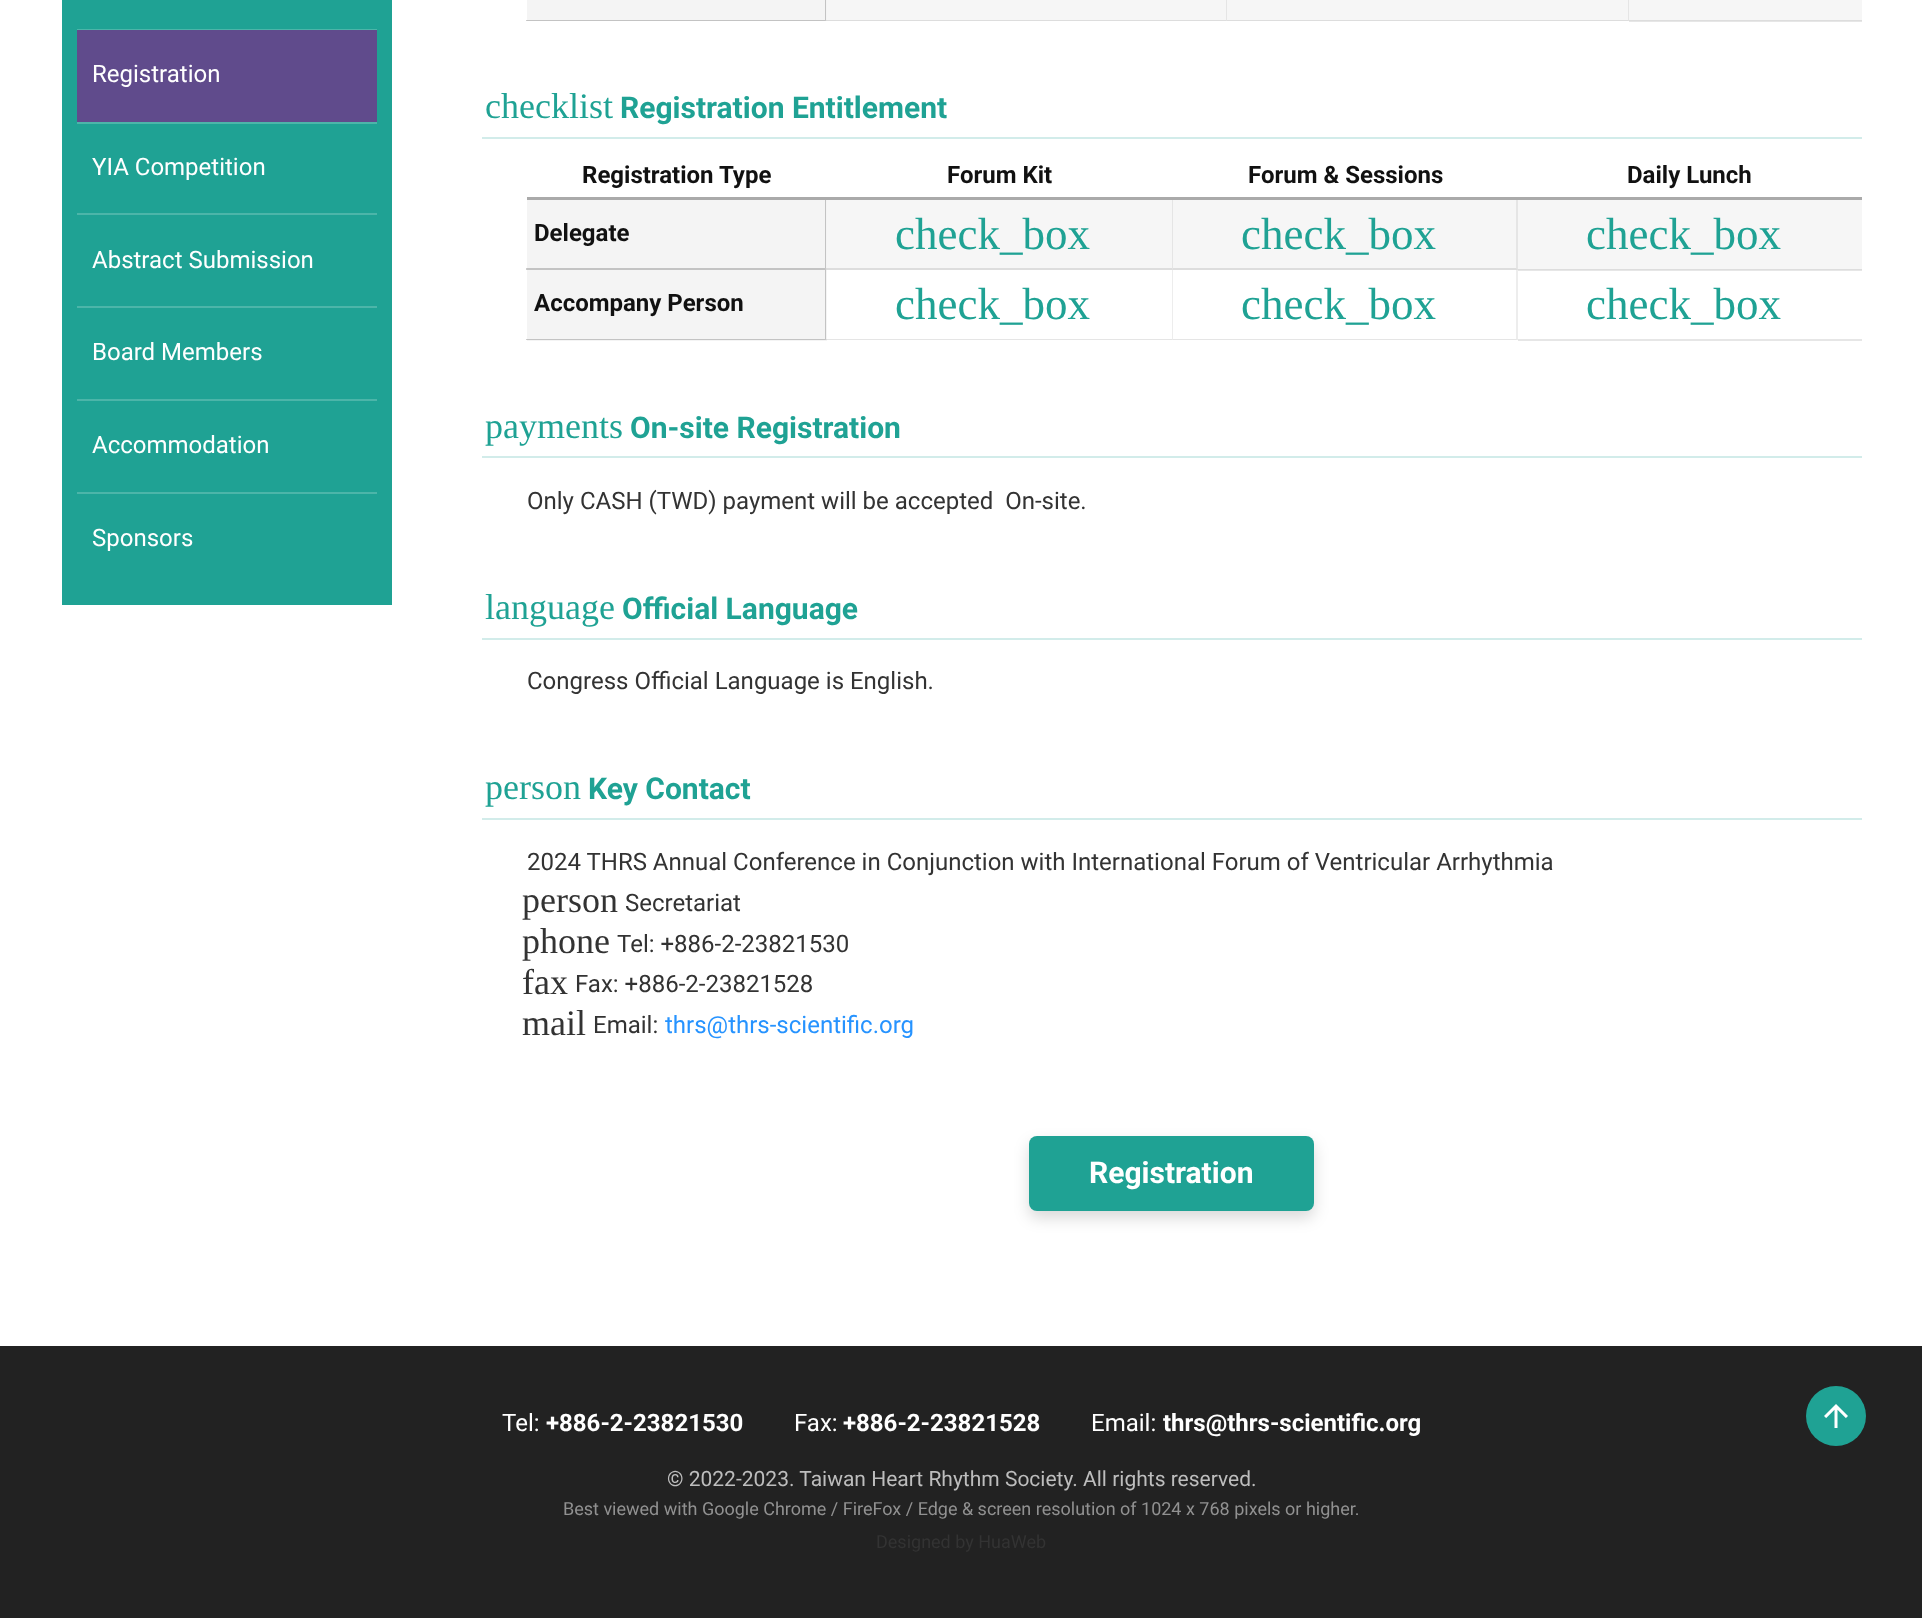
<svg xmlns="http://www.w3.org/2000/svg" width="1922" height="1618">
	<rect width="100%" height="100%" fill="#222222" />
	<rect x="0" y="0" width="1922" height="1346" fill="#FFFFFF" />
	<rect x="1518" y="270" width="344" height="1" fill="#E6E6E6" />
	<rect x="1629" y="21" width="233" height="1" fill="#E6E6E6" />
	<rect x="62" y="0" width="330" height="605" fill="#1FA294" />
	<rect x="77" y="29" width="300" height="1" fill="#4CB5A9" />
	<rect x="77" y="122" width="300" height="2" fill="#4CB5A9" />
	<rect x="77" y="30" width="300" height="92" fill="#604B8C" />
	<text x="92" y="82" font-family="Roboto" font-size="24" fill="#FFFFFF">Registration</text>
	<rect x="77" y="213" width="300" height="2" fill="#4CB5A9" />
	<text x="92" y="175" font-family="Roboto" font-size="24" fill="#FFFFFF">YIA Competition</text>
	<rect x="77" y="306" width="300" height="2" fill="#4CB5A9" />
	<text x="92" y="268" font-family="Roboto" font-size="24" fill="#FFFFFF">Abstract Submission</text>
	<rect x="77" y="399" width="300" height="2" fill="#4CB5A9" />
	<text x="92" y="360" font-family="Roboto" font-size="24" fill="#FFFFFF">Board Members</text>
	<rect x="77" y="492" width="300" height="2" fill="#4CB5A9" />
	<g font-family="Roboto" font-size="24" fill="#FFFFFF">
		<text x="92" y="453">Accommodation</text>
		<text x="92" y="546">Sponsors</text>
	</g>
	<rect x="827" y="0" width="1035" height="21" fill="#F6F6F6" />
	<rect x="1629" y="20" width="233" height="1" fill="#DDDDDD" />
	<rect x="527" y="0" width="300" height="21" fill="#F4F4F4" />
	<path d="M826-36V21L825 20V-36Z" fill="#C3C3C3" />
	<path d="M826 21H526V20H825Z" fill="#000000" fill-opacity="0.2" />
	<path d="M1227-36V21L1226 20V-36Z" fill="#E5E5E5" />
	<path d="M1227 21H826V20H1226Z" fill="#000000" fill-opacity="0.1" />
	<path d="M1629-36V21L1628 20V-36Z" fill="#E5E5E5" />
	<path d="M1629 21H1227V20H1628Z" fill="#000000" fill-opacity="0.1" />
	<rect x="482" y="137" width="1380" height="2" fill="#D2ECEA" />
	<text x="485" y="118" font-family="Liberation Serif" font-size="36" fill="#1FA294">checklist</text>
	<text x="620" y="118" font-family="Roboto" font-size="30" font-weight="700" fill="#1FA294">Registration Entitlement</text>
	<rect x="527" y="197" width="1335" height="3" fill="#AAAAAA" />
	<g font-family="Roboto" font-size="24" font-weight="700" fill="#111111">
		<text x="582" y="183">Registration Type</text>
		<text x="947" y="183">Forum Kit</text>
		<text x="1248" y="183">Forum &amp; Sessions</text>
		<text x="1627" y="183">Daily Lunch</text>
	</g>
	<rect x="827" y="200" width="1035" height="70" fill="#F6F6F6" />
	<rect x="1518" y="269" width="344" height="1" fill="#DDDDDD" />
	<rect x="527" y="200" width="300" height="141" fill="#F4F4F4" />
	<path d="M826 200V270L825 268V200Z" fill="#C3C3C3" />
	<path d="M826 270H526V268H825Z" fill="#000000" fill-opacity="0.2" />
	<text x="534" y="241" font-family="Roboto" font-size="24" font-weight="700" fill="#111111">Delegate</text>
	<path d="M1173 200V270L1172 268V200Z" fill="#E5E5E5" />
	<path d="M1173 270H826V268H1172Z" fill="#000000" fill-opacity="0.1" />
	<text x="895" y="249" font-family="Liberation Serif" font-size="45" fill="#1FA294">check_box</text>
	<path d="M1518 200V270L1516 268V200Z" fill="#E5E5E5" />
	<path d="M1518 270H1173V268H1516Z" fill="#000000" fill-opacity="0.1" />
	<g font-family="Liberation Serif" font-size="45" fill="#1FA294">
		<text x="1241" y="249">check_box</text>
		<text x="1586" y="249">check_box</text>
	</g>
	<path d="M826 270V340L825 339V270Z" fill="#C3C3C3" />
	<path d="M826 340H526V339H825Z" fill="#000000" fill-opacity="0.2" />
	<text x="534" y="311" font-family="Roboto" font-size="24" font-weight="700" fill="#111111">Accompany Person</text>
	<path d="M1173 270V340L1172 339V270Z" fill="#EDEDED" />
	<path d="M1173 340H826V339H1172Z" fill="#000000" fill-opacity="0.1" />
	<text x="895" y="319" font-family="Liberation Serif" font-size="45" fill="#1FA294">check_box</text>
	<path d="M1518 270V340L1516 339V270Z" fill="#EDEDED" />
	<path d="M1518 340H1173V339H1516Z" fill="#000000" fill-opacity="0.1" />
	<text x="1241" y="319" font-family="Liberation Serif" font-size="45" fill="#1FA294">check_box</text>
	<rect x="1518" y="339" width="344" height="2" fill="#E6E6E6" />
	<text x="1586" y="319" font-family="Liberation Serif" font-size="45" fill="#1FA294">check_box</text>
	<rect x="482" y="456" width="1380" height="2" fill="#D2ECEA" />
	<text x="485" y="438" font-family="Liberation Serif" font-size="36" fill="#1FA294">payments</text>
	<text x="630" y="438" font-family="Roboto" font-size="30" font-weight="700" fill="#1FA294">On-site Registration</text>
	<text x="527" y="509" font-family="Roboto" font-size="24" fill="#333333" xml:space="preserve">Only CASH (TWD) payment will be accepted  On-site.</text>
	<rect x="482" y="638" width="1380" height="2" fill="#D2ECEA" />
	<text x="485" y="619" font-family="Liberation Serif" font-size="36" fill="#1FA294">language</text>
	<text x="622" y="619" font-family="Roboto" font-size="30" font-weight="700" fill="#1FA294">Official Language</text>
	<text x="527" y="689" font-family="Roboto" font-size="24" fill="#333333">Congress Official Language is English.</text>
	<rect x="482" y="818" width="1380" height="2" fill="#D2ECEA" />
	<text x="485" y="799" font-family="Liberation Serif" font-size="36" fill="#1FA294">person</text>
	<text x="588" y="799" font-family="Roboto" font-size="30" font-weight="700" fill="#1FA294">Key Contact</text>
	<text x="527" y="870" font-family="Roboto" font-size="24" fill="#333333">2024 THRS Annual Conference in Conjunction with International Forum of Ventricular Arrhythmia</text>
	<text x="522" y="912" font-family="Liberation Serif" font-size="36" fill="#333333">person</text>
	<text x="625" y="911" font-family="Roboto" font-size="24" fill="#333333">Secretariat</text>
	<text x="522" y="953" font-family="Liberation Serif" font-size="36" fill="#333333">phone</text>
	<text x="617" y="952" font-family="Roboto" font-size="24" fill="#333333">Tel: +886-2-23821530</text>
	<text x="522" y="994" font-family="Liberation Serif" font-size="36" fill="#333333">fax</text>
	<text x="575" y="992" font-family="Roboto" font-size="24" fill="#333333">Fax: +886-2-23821528</text>
	<text x="522" y="1035" font-family="Liberation Serif" font-size="36" fill="#333333">mail</text>
	<text x="593" y="1033" font-family="Roboto" font-size="24" fill="#333333">Email:</text>
	<text x="665" y="1033" font-family="Roboto" font-size="24" fill="#2693FF">thrs@thrs-scientific.org</text>
	<rect x="1029" y="1143" width="285" height="75" rx="8" fill="#000000" fill-opacity="0.15" filter="blur(7.5px)" />
	<rect x="1029" y="1136" width="285" height="75" rx="8" fill="#1FA294" />
	<text x="1089" y="1183" font-family="Roboto" font-size="30" font-weight="700" fill="#FFFFFF">Registration</text>
	<text x="502" y="1431" font-family="Roboto" font-size="24" fill="#FFFFFF">Tel:</text>
	<text x="546" y="1431" font-family="Roboto" font-size="24" font-weight="700" fill="#FFFFFF">+886-2-23821530</text>
	<text x="794" y="1431" font-family="Roboto" font-size="24" fill="#FFFFFF">Fax:</text>
	<text x="843" y="1431" font-family="Roboto" font-size="24" font-weight="700" fill="#FFFFFF">+886-2-23821528</text>
	<text x="1091" y="1431" font-family="Roboto" font-size="24" fill="#FFFFFF">Email:</text>
	<text x="1163" y="1431" font-family="Roboto" font-size="24" font-weight="700" fill="#FFFFFF">thrs@thrs-scientific.org</text>
	<text x="667" y="1486" font-family="Roboto" font-size="21" fill="#BDBDBD">© 2022-2023. Taiwan Heart Rhythm Society. All rights reserved.</text>
	<text x="563" y="1515" font-family="Roboto" font-size="18" fill="#919191">Best viewed with Google Chrome / FireFox / Edge &amp; screen resolution of 1024 x 768 pixels or higher.</text>
	<text x="876" y="1548" font-family="Roboto" font-size="18" fill="#333333">Designed by HuaWeb</text>
	<circle cx="1836" cy="1416" r="30" fill="#1FA294" />
	<image x="1824" y="1404" width="24" height="24" href="assets/img1.png" />
</svg>
